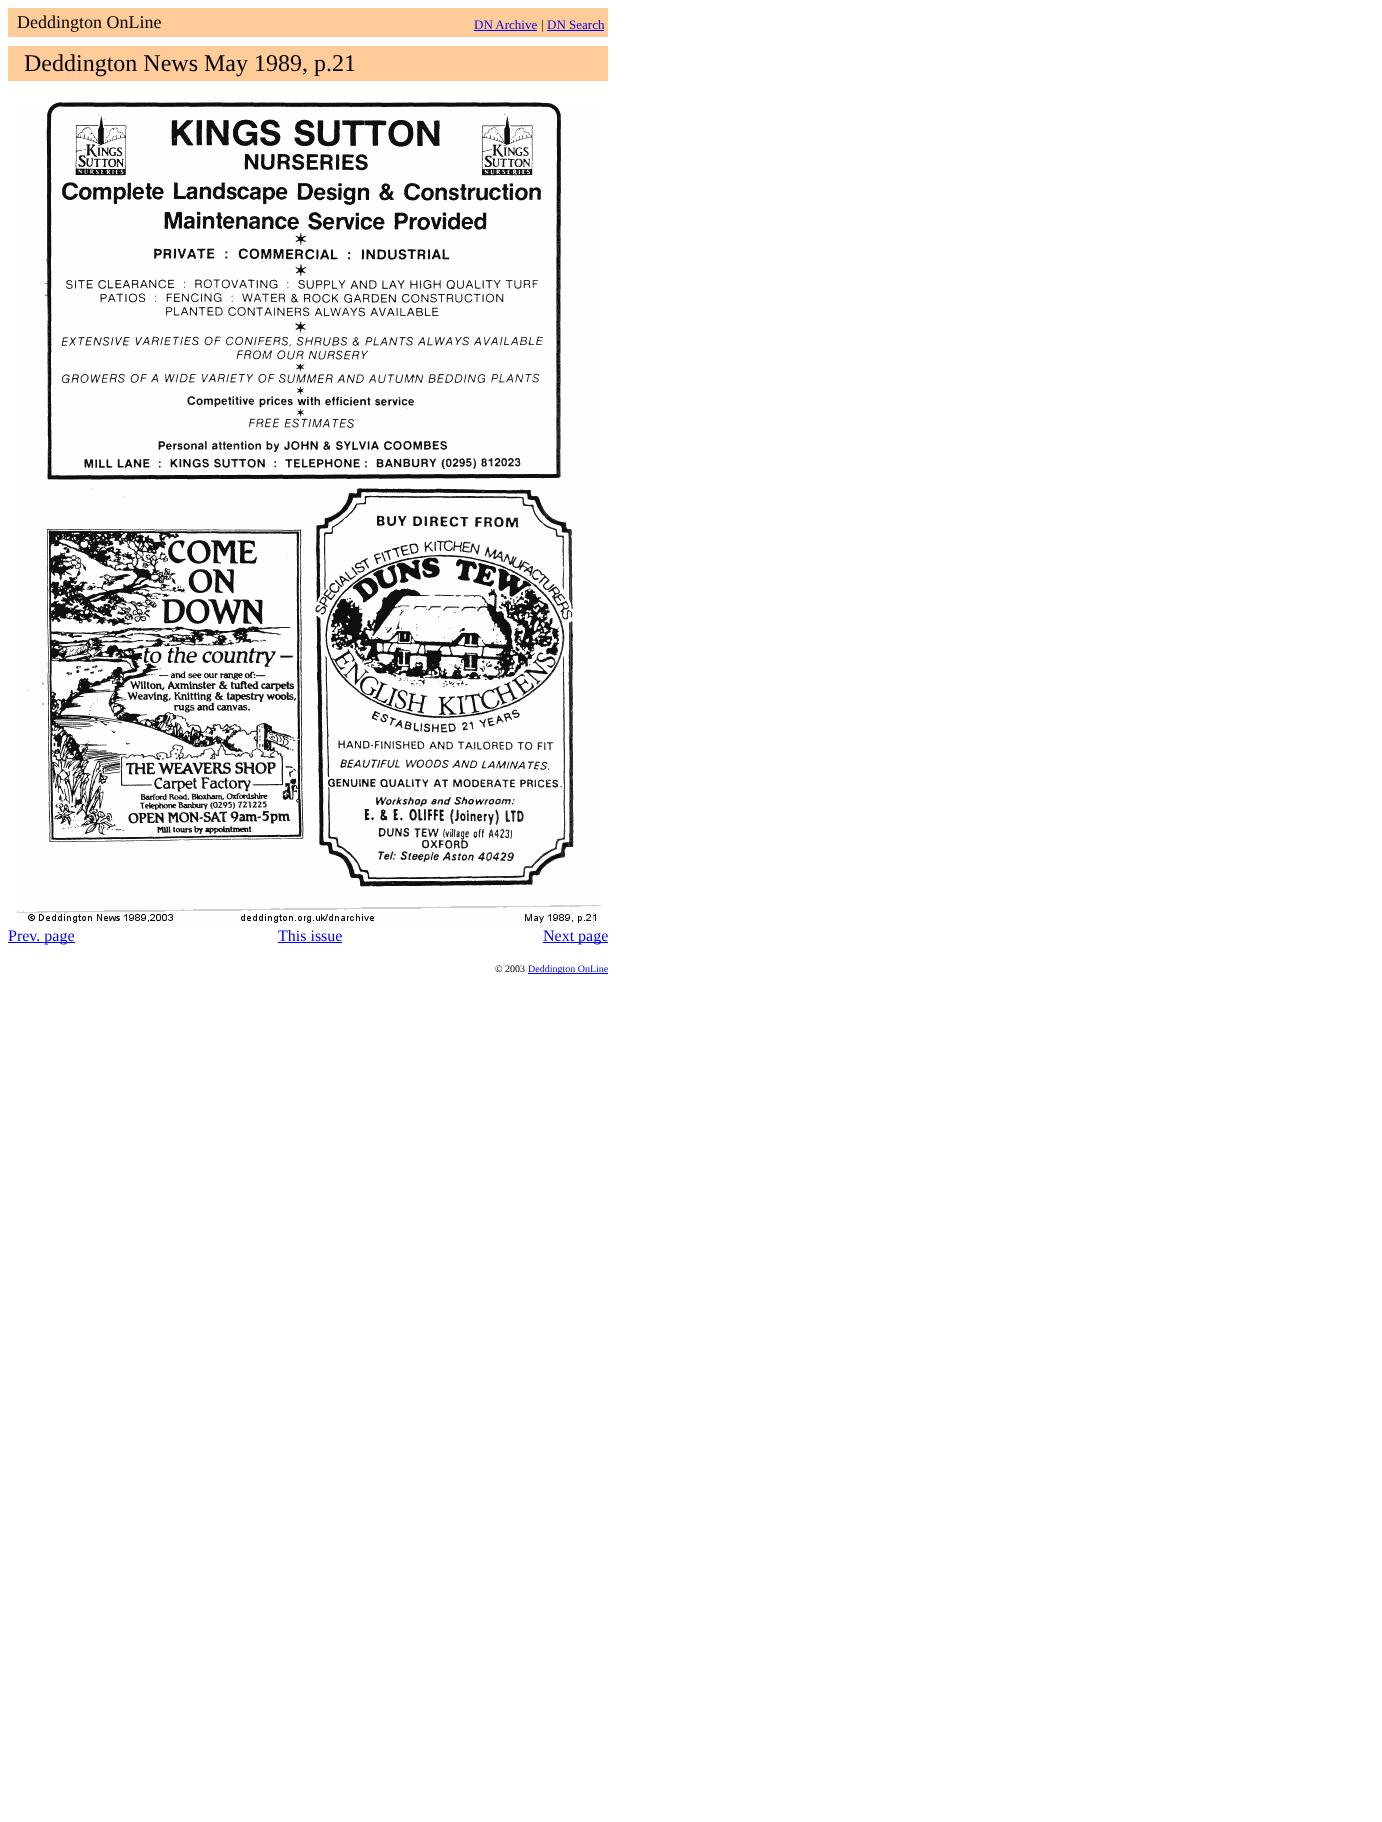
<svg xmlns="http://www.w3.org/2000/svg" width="1382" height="1822">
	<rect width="100%" height="100%" fill="#FFFFFF" />
	<rect x="8" y="8" width="600" height="29" fill="#FFCC99" />
	<text x="17" y="28" font-family="Liberation Serif" font-size="18" fill="#000000">Deddington OnLine</text>
	<text x="474" y="29" font-family="Liberation Serif" font-size="13" fill="#0000EE">DN Archive</text>
	<rect x="474" y="30" width="63" height="1" fill="#0000EE" />
	<text x="541" y="29" font-family="Liberation Serif" font-size="13" fill="#000000">|</text>
	<text x="547" y="29" font-family="Liberation Serif" font-size="13" fill="#0000EE">DN Search</text>
	<rect x="547" y="30" width="57" height="1" fill="#0000EE" />
	<rect x="8" y="46" width="600" height="35" fill="#FFCC99" />
	<text x="24" y="71" font-family="Liberation Serif" font-size="24" fill="#000000">Deddington News May 1989, p.21</text>
	<image x="17" y="102" width="584" height="824" href="assets/img1.png" />
	<rect x="8" y="942" width="67" height="1" fill="#0000EE" />
	<g font-family="Liberation Serif" font-size="16" fill="#0000EE">
		<text x="8" y="941">Prev. page</text>
		<text x="278" y="941">This issue</text>
	</g>
	<rect x="278" y="942" width="64" height="1" fill="#0000EE" />
	<rect x="543" y="942" width="65" height="1" fill="#0000EE" />
	<text x="543" y="941" font-family="Liberation Serif" font-size="16" fill="#0000EE">Next page</text>
	<text x="495" y="972" font-family="Liberation Serif" font-size="10" fill="#000000">© 2003</text>
	<rect x="528" y="973" width="80" height="1" fill="#0000EE" />
	<text x="528" y="972" font-family="Liberation Serif" font-size="10" fill="#0000EE">Deddington OnLine</text>
</svg>
